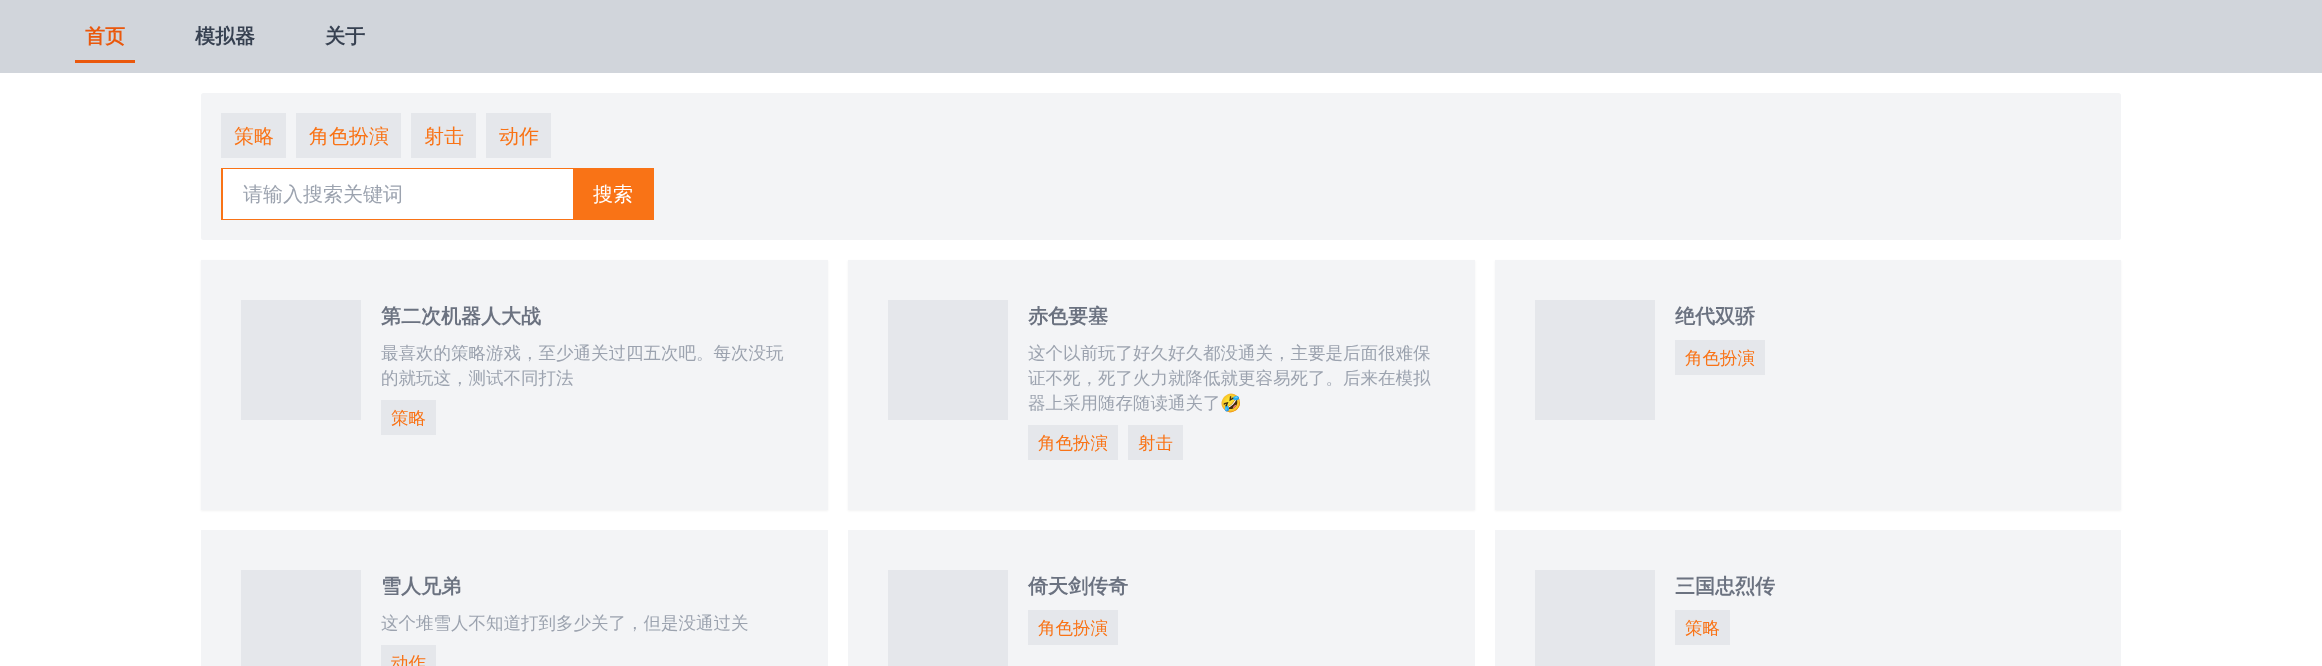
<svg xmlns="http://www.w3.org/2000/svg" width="2322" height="666">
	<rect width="100%" height="100%" fill="#FFFFFF" />
	<rect x="0" y="0" width="2322" height="73" fill="#D1D5DB" />
	<rect x="75" y="60" width="60" height="3" fill="#EA580C" />
	<text x="85" y="43" font-family="WenQuanYi Zen Hei" font-size="20" font-weight="700" fill="#EA580C">首页</text>
	<g font-family="WenQuanYi Zen Hei" font-size="20" font-weight="700" fill="#374151">
		<text x="195" y="43">模拟器</text>
		<text x="325" y="43">关于</text>
	</g>
	<rect x="201" y="93" width="1920" height="147" rx="2.5" fill="#F3F4F6" />
	<rect x="221" y="113" width="65" height="45" fill="#E5E7EB" />
	<text x="234" y="143" font-family="WenQuanYi Zen Hei" font-size="20" font-weight="500" fill="#F97316">策略</text>
	<rect x="296" y="113" width="105" height="45" fill="#E5E7EB" />
	<text x="309" y="143" font-family="WenQuanYi Zen Hei" font-size="20" font-weight="500" fill="#F97316">角色扮演</text>
	<rect x="411" y="113" width="65" height="45" fill="#E5E7EB" />
	<text x="424" y="143" font-family="WenQuanYi Zen Hei" font-size="20" font-weight="500" fill="#F97316">射击</text>
	<rect x="486" y="113" width="65" height="45" fill="#E5E7EB" />
	<text x="499" y="143" font-family="WenQuanYi Zen Hei" font-size="20" font-weight="500" fill="#F97316">动作</text>
	<rect x="221" y="168" width="433" height="52" fill="#F97316" />
	<rect x="223" y="169" width="350" height="50" fill="#FFFFFF" />
	<text x="243" y="201" font-family="WenQuanYi Zen Hei" font-size="20" font-weight="500" fill="#9CA3AF">请输入搜索关键词</text>
	<text x="593" y="201" font-family="WenQuanYi Zen Hei" font-size="20" font-weight="500" fill="#FFFFFF">搜索</text>
	<rect x="201" y="261" width="627" height="250" fill="#000000" fill-opacity="0.05" filter="blur(1px)" />
	<rect x="201" y="260" width="627" height="250" fill="#F3F4F6" />
	<rect x="241" y="300" width="120" height="120" fill="#E5E7EB" />
	<text x="381" y="323" font-family="WenQuanYi Zen Hei" font-size="20" font-weight="700" fill="#6B7280">第二次机器人大战</text>
	<g font-family="WenQuanYi Zen Hei" font-size="17.5" font-weight="500" fill="#9CA3AF">
		<text x="381" y="359">最喜欢的策略游戏，至少通关过四五次吧。每次没玩</text>
		<text x="381" y="384">的就玩这，测试不同打法</text>
	</g>
	<rect x="381" y="400" width="55" height="35" fill="#E5E7EB" />
	<text x="391" y="424" font-family="WenQuanYi Zen Hei" font-size="17.5" font-weight="500" fill="#F97316">策略</text>
	<rect x="848" y="261" width="627" height="250" fill="#000000" fill-opacity="0.05" filter="blur(1px)" />
	<rect x="848" y="260" width="627" height="250" fill="#F3F4F6" />
	<rect x="888" y="300" width="120" height="120" fill="#E5E7EB" />
	<text x="1028" y="323" font-family="WenQuanYi Zen Hei" font-size="20" font-weight="700" fill="#6B7280">赤色要塞</text>
	<g font-family="WenQuanYi Zen Hei" font-size="17.5" font-weight="500" fill="#9CA3AF">
		<text x="1028" y="359">这个以前玩了好久好久都没通关，主要是后面很难保</text>
		<text x="1028" y="384">证不死，死了火力就降低就更容易死了。后来在模拟</text>
		<text x="1028" y="409">器上采用随存随读通关了</text>
	</g>
	<text x="1220" y="409" font-family="Noto Color Emoji" font-size="17.5" fill="#9CA3AF">🤣</text>
	<rect x="1028" y="425" width="90" height="35" fill="#E5E7EB" />
	<text x="1038" y="449" font-family="WenQuanYi Zen Hei" font-size="17.5" font-weight="500" fill="#F97316">角色扮演</text>
	<rect x="1128" y="425" width="55" height="35" fill="#E5E7EB" />
	<text x="1138" y="449" font-family="WenQuanYi Zen Hei" font-size="17.5" font-weight="500" fill="#F97316">射击</text>
	<rect x="1495" y="261" width="626" height="250" fill="#000000" fill-opacity="0.05" filter="blur(1px)" />
	<rect x="1495" y="260" width="626" height="250" fill="#F3F4F6" />
	<rect x="1535" y="300" width="120" height="120" fill="#E5E7EB" />
	<text x="1675" y="323" font-family="WenQuanYi Zen Hei" font-size="20" font-weight="700" fill="#6B7280">绝代双骄</text>
	<rect x="1675" y="340" width="90" height="35" fill="#E5E7EB" />
	<text x="1685" y="364" font-family="WenQuanYi Zen Hei" font-size="17.5" font-weight="500" fill="#F97316">角色扮演</text>
	<rect x="201" y="530" width="627" height="136" fill="#F3F4F6" />
	<rect x="241" y="570" width="120" height="96" fill="#E5E7EB" />
	<text x="381" y="593" font-family="WenQuanYi Zen Hei" font-size="20" font-weight="700" fill="#6B7280">雪人兄弟</text>
	<text x="381" y="629" font-family="WenQuanYi Zen Hei" font-size="17.5" font-weight="500" fill="#9CA3AF">这个堆雪人不知道打到多少关了，但是没通过关</text>
	<rect x="381" y="645" width="55" height="21" fill="#E5E7EB" />
	<text x="391" y="669" font-family="WenQuanYi Zen Hei" font-size="17.5" font-weight="500" fill="#F97316">动作</text>
	<rect x="848" y="530" width="627" height="136" fill="#F3F4F6" />
	<rect x="888" y="570" width="120" height="96" fill="#E5E7EB" />
	<text x="1028" y="593" font-family="WenQuanYi Zen Hei" font-size="20" font-weight="700" fill="#6B7280">倚天剑传奇</text>
	<rect x="1028" y="610" width="90" height="35" fill="#E5E7EB" />
	<text x="1038" y="634" font-family="WenQuanYi Zen Hei" font-size="17.5" font-weight="500" fill="#F97316">角色扮演</text>
	<rect x="1495" y="530" width="626" height="136" fill="#F3F4F6" />
	<rect x="1535" y="570" width="120" height="96" fill="#E5E7EB" />
	<text x="1675" y="593" font-family="WenQuanYi Zen Hei" font-size="20" font-weight="700" fill="#6B7280">三国忠烈传</text>
	<rect x="1675" y="610" width="55" height="35" fill="#E5E7EB" />
	<text x="1685" y="634" font-family="WenQuanYi Zen Hei" font-size="17.5" font-weight="500" fill="#F97316">策略</text>
</svg>
